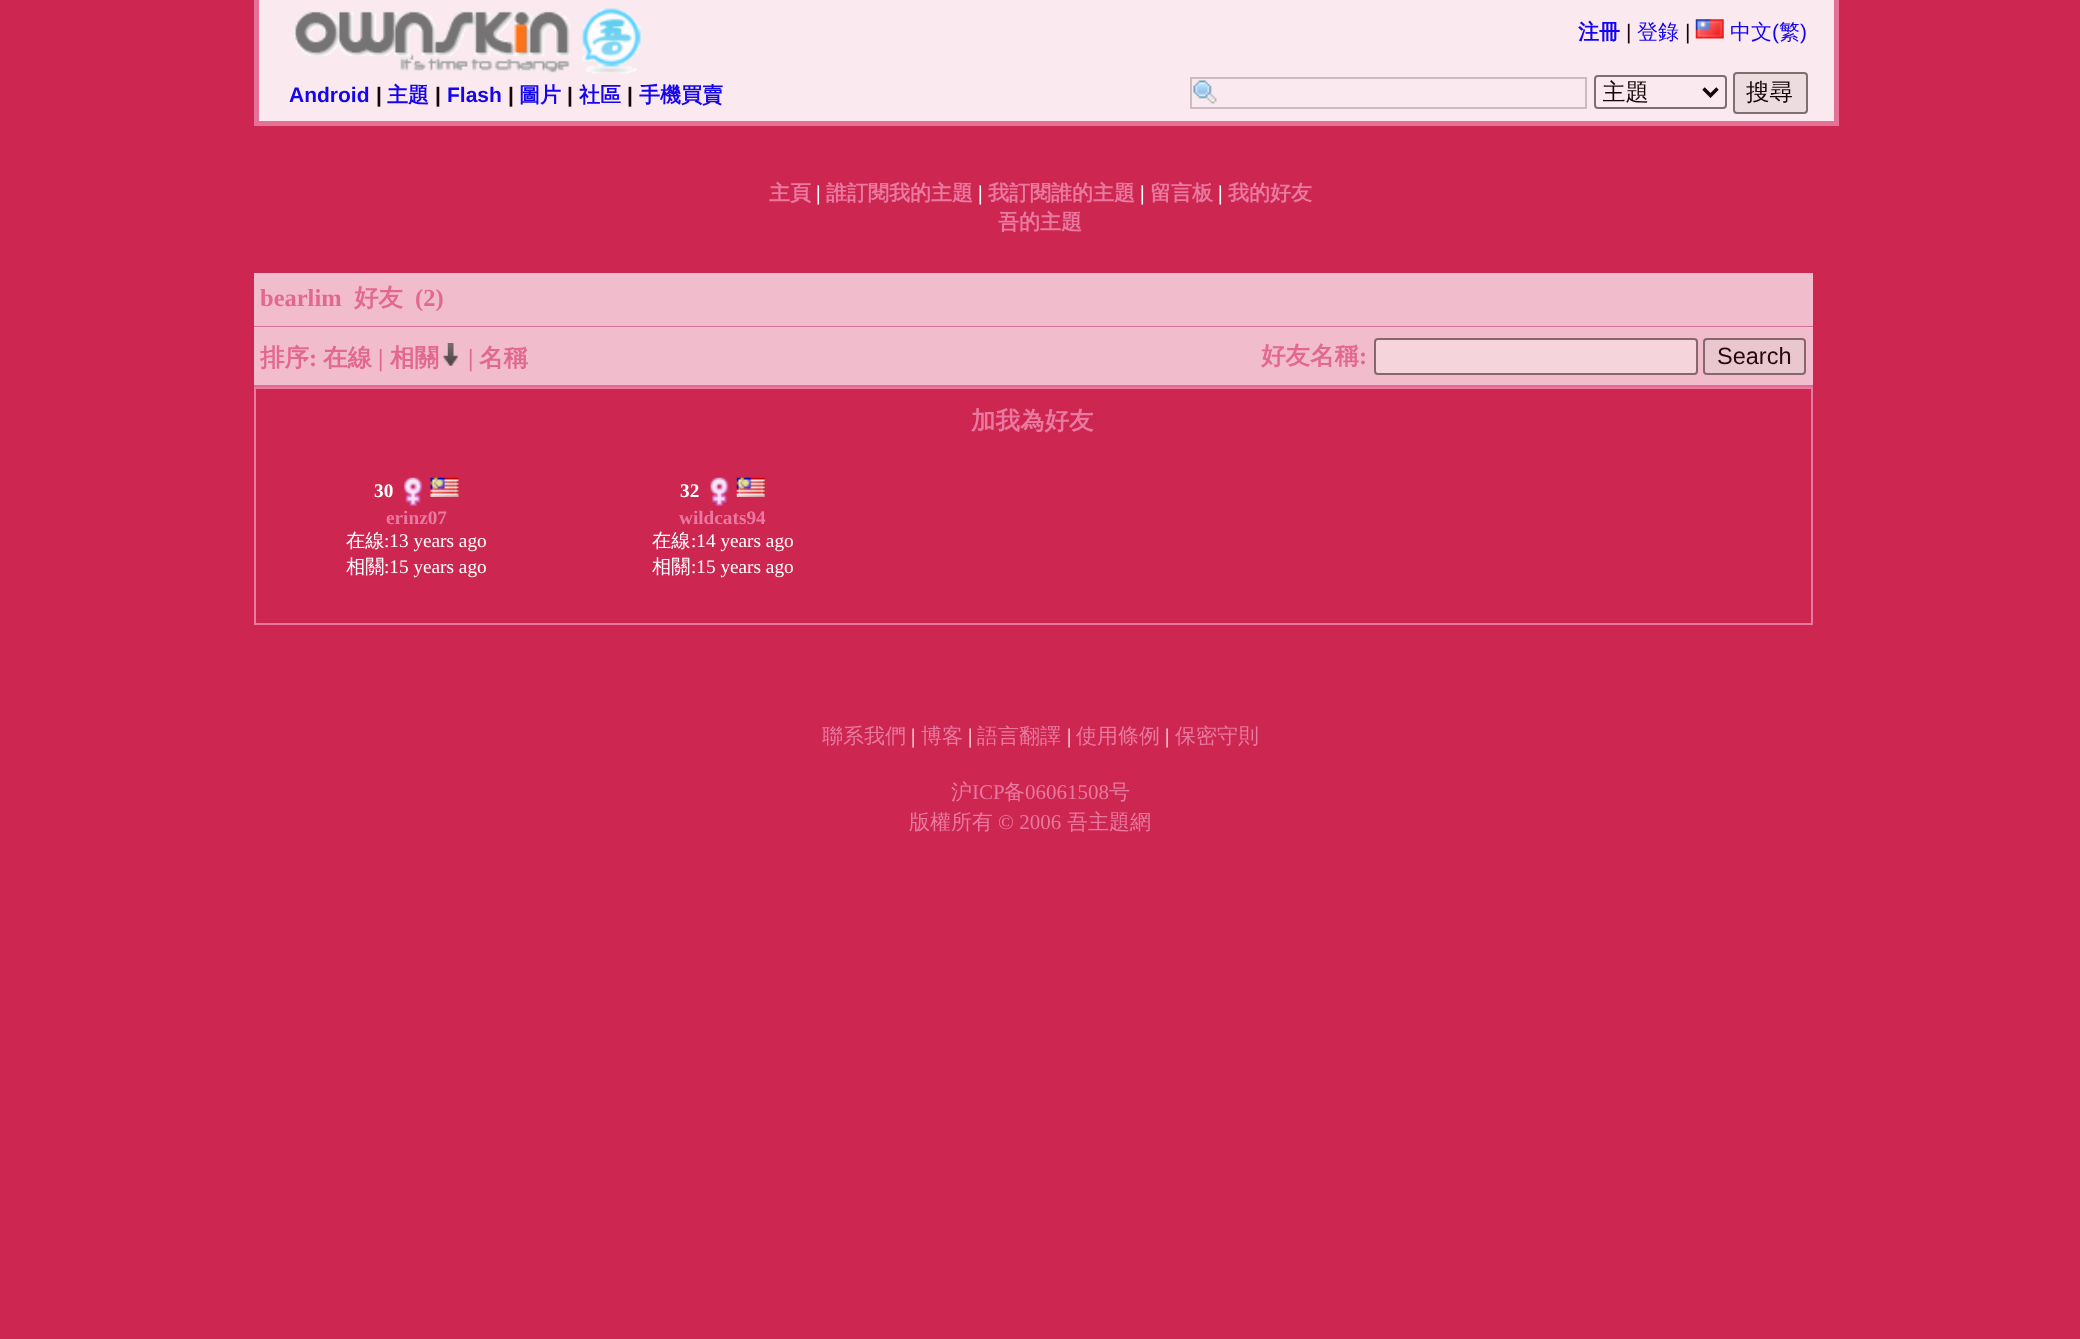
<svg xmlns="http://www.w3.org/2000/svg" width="2080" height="1339">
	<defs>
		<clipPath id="clip1"><rect x="1603" y="77" width="95" height="30" /></clipPath>
	</defs>
	<rect width="100%" height="100%" fill="#CD2651" />
	<rect x="254" y="328" width="1559" height="57" fill="#F1BDCC" />
	<rect x="259" y="0" width="1575" height="121" fill="#FAE9EE" />
	<rect x="1834" y="0" width="5" height="126" fill="#E67197" />
	<rect x="254" y="121" width="1585" height="5" fill="#E67197" />
	<rect x="254" y="0" width="5" height="126" fill="#E67197" />
	<image x="294" y="8" width="347" height="66" href="assets/img1.png" />
	<text x="289" y="102" font-family="Liberation Sans" font-size="21" font-weight="700" fill="#1504EE">Android</text>
	<text x="376" y="102" font-family="Liberation Sans" font-size="21" font-weight="700" fill="#150408">|</text>
	<text x="387" y="102" font-family="WenQuanYi Zen Hei" font-size="21" font-weight="700" fill="#1504EE">主題</text>
	<text x="435" y="102" font-family="Liberation Sans" font-size="21" font-weight="700" fill="#150408">|</text>
	<text x="447" y="102" font-family="Liberation Sans" font-size="21" font-weight="700" fill="#1504EE">Flash</text>
	<text x="508" y="102" font-family="Liberation Sans" font-size="21" font-weight="700" fill="#150408">|</text>
	<text x="519" y="102" font-family="WenQuanYi Zen Hei" font-size="21" font-weight="700" fill="#1504EE">圖片</text>
	<text x="567" y="102" font-family="Liberation Sans" font-size="21" font-weight="700" fill="#150408">|</text>
	<text x="579" y="102" font-family="WenQuanYi Zen Hei" font-size="21" font-weight="700" fill="#1504EE">社區</text>
	<text x="627" y="102" font-family="Liberation Sans" font-size="21" font-weight="700" fill="#150408">|</text>
	<g font-family="WenQuanYi Zen Hei" font-size="21" font-weight="700" fill="#1504EE">
		<text x="639" y="102">手機買賣</text>
		<text x="1578" y="39">注冊</text>
	</g>
	<text x="1626" y="39" font-family="Liberation Sans" font-size="21" fill="#150408">|</text>
	<text x="1637" y="39" font-family="WenQuanYi Zen Hei" font-size="21" font-weight="500" fill="#1504EE">登錄</text>
	<text x="1685" y="39" font-family="Liberation Sans" font-size="21" fill="#150408">|</text>
	<image x="1695" y="19" width="29" height="20" href="assets/img2.png" />
	<text x="1730" y="39" font-family="WenQuanYi Zen Hei" font-size="21" font-weight="500" fill="#1504EE">中文</text>
	<text x="1772" y="39" font-family="Liberation Sans" font-size="21" fill="#1504EE">(</text>
	<text x="1779" y="39" font-family="WenQuanYi Zen Hei" font-size="21" font-weight="500" fill="#1504EE">繁</text>
	<text x="1800" y="39" font-family="Liberation Sans" font-size="21" fill="#1504EE">)</text>
	<image x="1193" y="80" width="24" height="24" href="assets/img3.png" />
	<rect x="1191" y="78" width="395" height="30" fill="none" stroke="#CCBBC0" stroke-width="2" />
	<rect x="1595" y="76" width="131" height="32" rx="3" fill="none" stroke="#7F6E72" stroke-width="2" />
	<path d="M1703.5 88.5L1710.5 95.5L1717.5 88.5" fill="none" stroke="#150408" stroke-width="3.5" />
	<g clip-path="url(#clip1)">
		<text x="1602" y="100" font-family="WenQuanYi Zen Hei" font-size="23.5" font-weight="500" fill="#150408">主題</text>
	</g>
	<rect x="1734" y="73" width="73" height="40" rx="3" fill="#ECDBDF" stroke="#7F6E72" stroke-width="2" />
	<text x="1746" y="100" font-family="WenQuanYi Zen Hei" font-size="23.5" font-weight="500" fill="#150408">搜尋</text>
	<text x="769" y="200" font-family="WenQuanYi Zen Hei" font-size="21" font-weight="700" fill="#E9799F">主頁</text>
	<text x="816" y="200" font-family="Liberation Serif" font-size="21" font-weight="700" fill="#FFFFFF">|</text>
	<text x="826" y="200" font-family="WenQuanYi Zen Hei" font-size="21" font-weight="700" fill="#E9799F">誰訂閱我的主題</text>
	<text x="978" y="200" font-family="Liberation Serif" font-size="21" font-weight="700" fill="#FFFFFF">|</text>
	<text x="988" y="200" font-family="WenQuanYi Zen Hei" font-size="21" font-weight="700" fill="#E9799F">我訂閱誰的主題</text>
	<text x="1140" y="200" font-family="Liberation Serif" font-size="21" font-weight="700" fill="#FFFFFF">|</text>
	<text x="1150" y="200" font-family="WenQuanYi Zen Hei" font-size="21" font-weight="700" fill="#E9799F">留言板</text>
	<text x="1218" y="200" font-family="Liberation Serif" font-size="21" font-weight="700" fill="#FFFFFF">|</text>
	<g font-family="WenQuanYi Zen Hei" font-size="21" font-weight="700" fill="#E9799F">
		<text x="1228" y="200">我的好友</text>
		<text x="998" y="229">吾的主題</text>
	</g>
	<rect x="254" y="273" width="1559" height="53" fill="#F1BDCC" />
	<rect x="254" y="326" width="1559" height="1" fill="#E3688F" />
	<rect x="254" y="327" width="1559" height="1" fill="#F5CAD9" />
	<text x="260" y="306" font-family="Liberation Serif" font-size="24.5" font-weight="700" fill="#E3688F">bearlim</text>
	<text x="354" y="306" font-family="WenQuanYi Zen Hei" font-size="24.5" font-weight="700" fill="#E3688F">好友</text>
	<text x="415" y="306" font-family="Liberation Serif" font-size="24.5" font-weight="700" fill="#E3688F">(2)</text>
	<rect x="254" y="385" width="1559" height="2" fill="#E3688F" />
	<text x="260" y="366" font-family="WenQuanYi Zen Hei" font-size="24.5" font-weight="700" fill="#E3688F">排序</text>
	<text x="309" y="366" font-family="Liberation Serif" font-size="24.5" font-weight="700" fill="#E3688F">:</text>
	<text x="323" y="366" font-family="WenQuanYi Zen Hei" font-size="24.5" font-weight="700" fill="#E3688F">在線</text>
	<text x="378" y="366" font-family="Liberation Serif" font-size="24.5" font-weight="700" fill="#E3688F">|</text>
	<text x="390" y="366" font-family="WenQuanYi Zen Hei" font-size="24.5" font-weight="700" fill="#E3688F">相關</text>
	<image x="443" y="343" width="15" height="23" href="assets/img4.png" />
	<text x="468" y="366" font-family="Liberation Serif" font-size="24.5" font-weight="700" fill="#E3688F">|</text>
	<g font-family="WenQuanYi Zen Hei" font-size="24.5" font-weight="700" fill="#E3688F">
		<text x="479" y="366">名稱</text>
		<text x="1261" y="364">好友名稱</text>
	</g>
	<text x="1359" y="364" font-family="Liberation Serif" font-size="24.5" font-weight="700" fill="#E3688F">:</text>
	<rect x="1375" y="339" width="322" height="35" rx="3" fill="#F5D4DC" stroke="#87666F" stroke-width="2" />
	<rect x="1704" y="339" width="101" height="35" rx="3" fill="#E8C7CF" stroke="#87666F" stroke-width="2" />
	<text x="1717" y="364" font-family="Liberation Sans" font-size="23.5" fill="#290810">Search</text>
	<rect x="255" y="388" width="1557" height="236" fill="none" stroke="#E9799F" stroke-width="2" />
	<text x="971" y="429" font-family="WenQuanYi Zen Hei" font-size="24.5" font-weight="700" fill="#E9799F">加我為好友</text>
	<text x="374" y="497" font-family="Liberation Serif" font-size="19.25" font-weight="700" fill="#FFFFFF">30</text>
	<image x="403" y="477" width="20" height="29" href="assets/img5.png" />
	<image x="430" y="477" width="29" height="20" href="assets/img6.png" />
	<text x="386" y="524" font-family="Liberation Serif" font-size="19.25" font-weight="700" fill="#E9799F">erinz07</text>
	<text x="346" y="547" font-family="WenQuanYi Zen Hei" font-size="19.25" font-weight="500" fill="#FFFFFF">在線</text>
	<text x="384" y="547" font-family="Liberation Serif" font-size="19.25" fill="#FFFFFF">:13 years ago</text>
	<text x="346" y="573" font-family="WenQuanYi Zen Hei" font-size="19.25" font-weight="500" fill="#FFFFFF">相關</text>
	<text x="384" y="573" font-family="Liberation Serif" font-size="19.25" fill="#FFFFFF">:15 years ago</text>
	<text x="680" y="497" font-family="Liberation Serif" font-size="19.25" font-weight="700" fill="#FFFFFF">32</text>
	<image x="710" y="477" width="19" height="29" href="assets/img7.png" />
	<image x="736" y="477" width="29" height="20" href="assets/img8.png" />
	<text x="679" y="524" font-family="Liberation Serif" font-size="19.25" font-weight="700" fill="#E9799F">wildcats94</text>
	<text x="652" y="547" font-family="WenQuanYi Zen Hei" font-size="19.25" font-weight="500" fill="#FFFFFF">在線</text>
	<text x="691" y="547" font-family="Liberation Serif" font-size="19.25" fill="#FFFFFF">:14 years ago</text>
	<text x="652" y="573" font-family="WenQuanYi Zen Hei" font-size="19.25" font-weight="500" fill="#FFFFFF">相關</text>
	<text x="691" y="573" font-family="Liberation Serif" font-size="19.25" fill="#FFFFFF">:15 years ago</text>
	<text x="822" y="743" font-family="WenQuanYi Zen Hei" font-size="21" font-weight="500" fill="#E9799F">聯系我們</text>
	<text x="911" y="743" font-family="Liberation Serif" font-size="21" fill="#FFFFFF">|</text>
	<text x="921" y="743" font-family="WenQuanYi Zen Hei" font-size="21" font-weight="500" fill="#E9799F">博客</text>
	<text x="968" y="743" font-family="Liberation Serif" font-size="21" fill="#FFFFFF">|</text>
	<text x="977" y="743" font-family="WenQuanYi Zen Hei" font-size="21" font-weight="500" fill="#E9799F">語言翻譯</text>
	<text x="1067" y="743" font-family="Liberation Serif" font-size="21" fill="#FFFFFF">|</text>
	<text x="1076" y="743" font-family="WenQuanYi Zen Hei" font-size="21" font-weight="500" fill="#E9799F">使用條例</text>
	<text x="1165" y="743" font-family="Liberation Serif" font-size="21" fill="#FFFFFF">|</text>
	<g font-family="WenQuanYi Zen Hei" font-size="21" font-weight="500" fill="#E9799F">
		<text x="1175" y="743">保密守則</text>
		<text x="951" y="799">沪</text>
	</g>
	<text x="972" y="799" font-family="Liberation Serif" font-size="21" fill="#E9799F">ICP</text>
	<text x="1004" y="799" font-family="WenQuanYi Zen Hei" font-size="21" font-weight="500" fill="#E9799F">备</text>
	<text x="1025" y="799" font-family="Liberation Serif" font-size="21" fill="#E9799F">06061508</text>
	<g font-family="WenQuanYi Zen Hei" font-size="21" font-weight="500" fill="#E9799F">
		<text x="1109" y="799">号</text>
		<text x="909" y="829">版權所有</text>
	</g>
	<text x="998" y="829" font-family="Liberation Serif" font-size="21" fill="#E9799F">© 2006</text>
	<text x="1067" y="829" font-family="WenQuanYi Zen Hei" font-size="21" font-weight="500" fill="#E9799F">吾主題網</text>
</svg>
